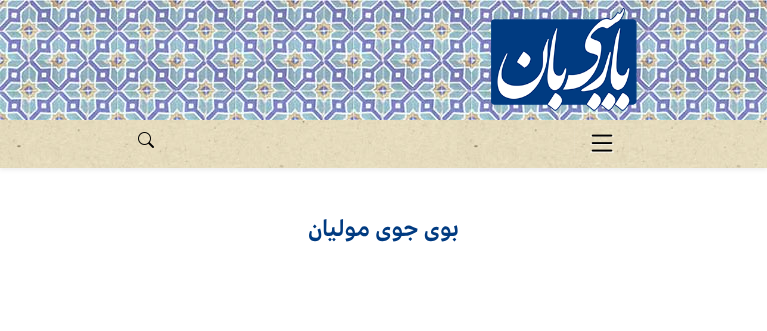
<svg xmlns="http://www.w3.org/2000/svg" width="767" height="331">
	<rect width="100%" height="100%" fill="#FFFFFF" />
	<image x="0" y="0" width="767" height="120" href="assets/img1.png" />
	<image x="491" y="7" width="146" height="105" href="assets/img2.png" />
	<rect x="0" y="122" width="767" height="48" fill="#000000" fill-opacity="0.07" filter="blur(2px)" />
	<image x="0" y="120" width="767" height="48" href="assets/img3.png" />
	<rect x="574.5" y="124.5" width="55" height="39" rx="5.5" fill="none" stroke="#FFFFFF" stroke-opacity="0.1" />
	<image x="590" y="135" width="24" height="18" href="assets/img4.png" />
	<image x="591" y="134" width="22" height="18" href="assets/img5.png" />
	<image x="138" y="132" width="16" height="16" href="assets/img6.png" />
	<text x="459" y="236" font-family="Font" font-size="22.75" font-weight="700" direction="rtl" fill="#013B81">بوی جوی مولیان</text>
</svg>
